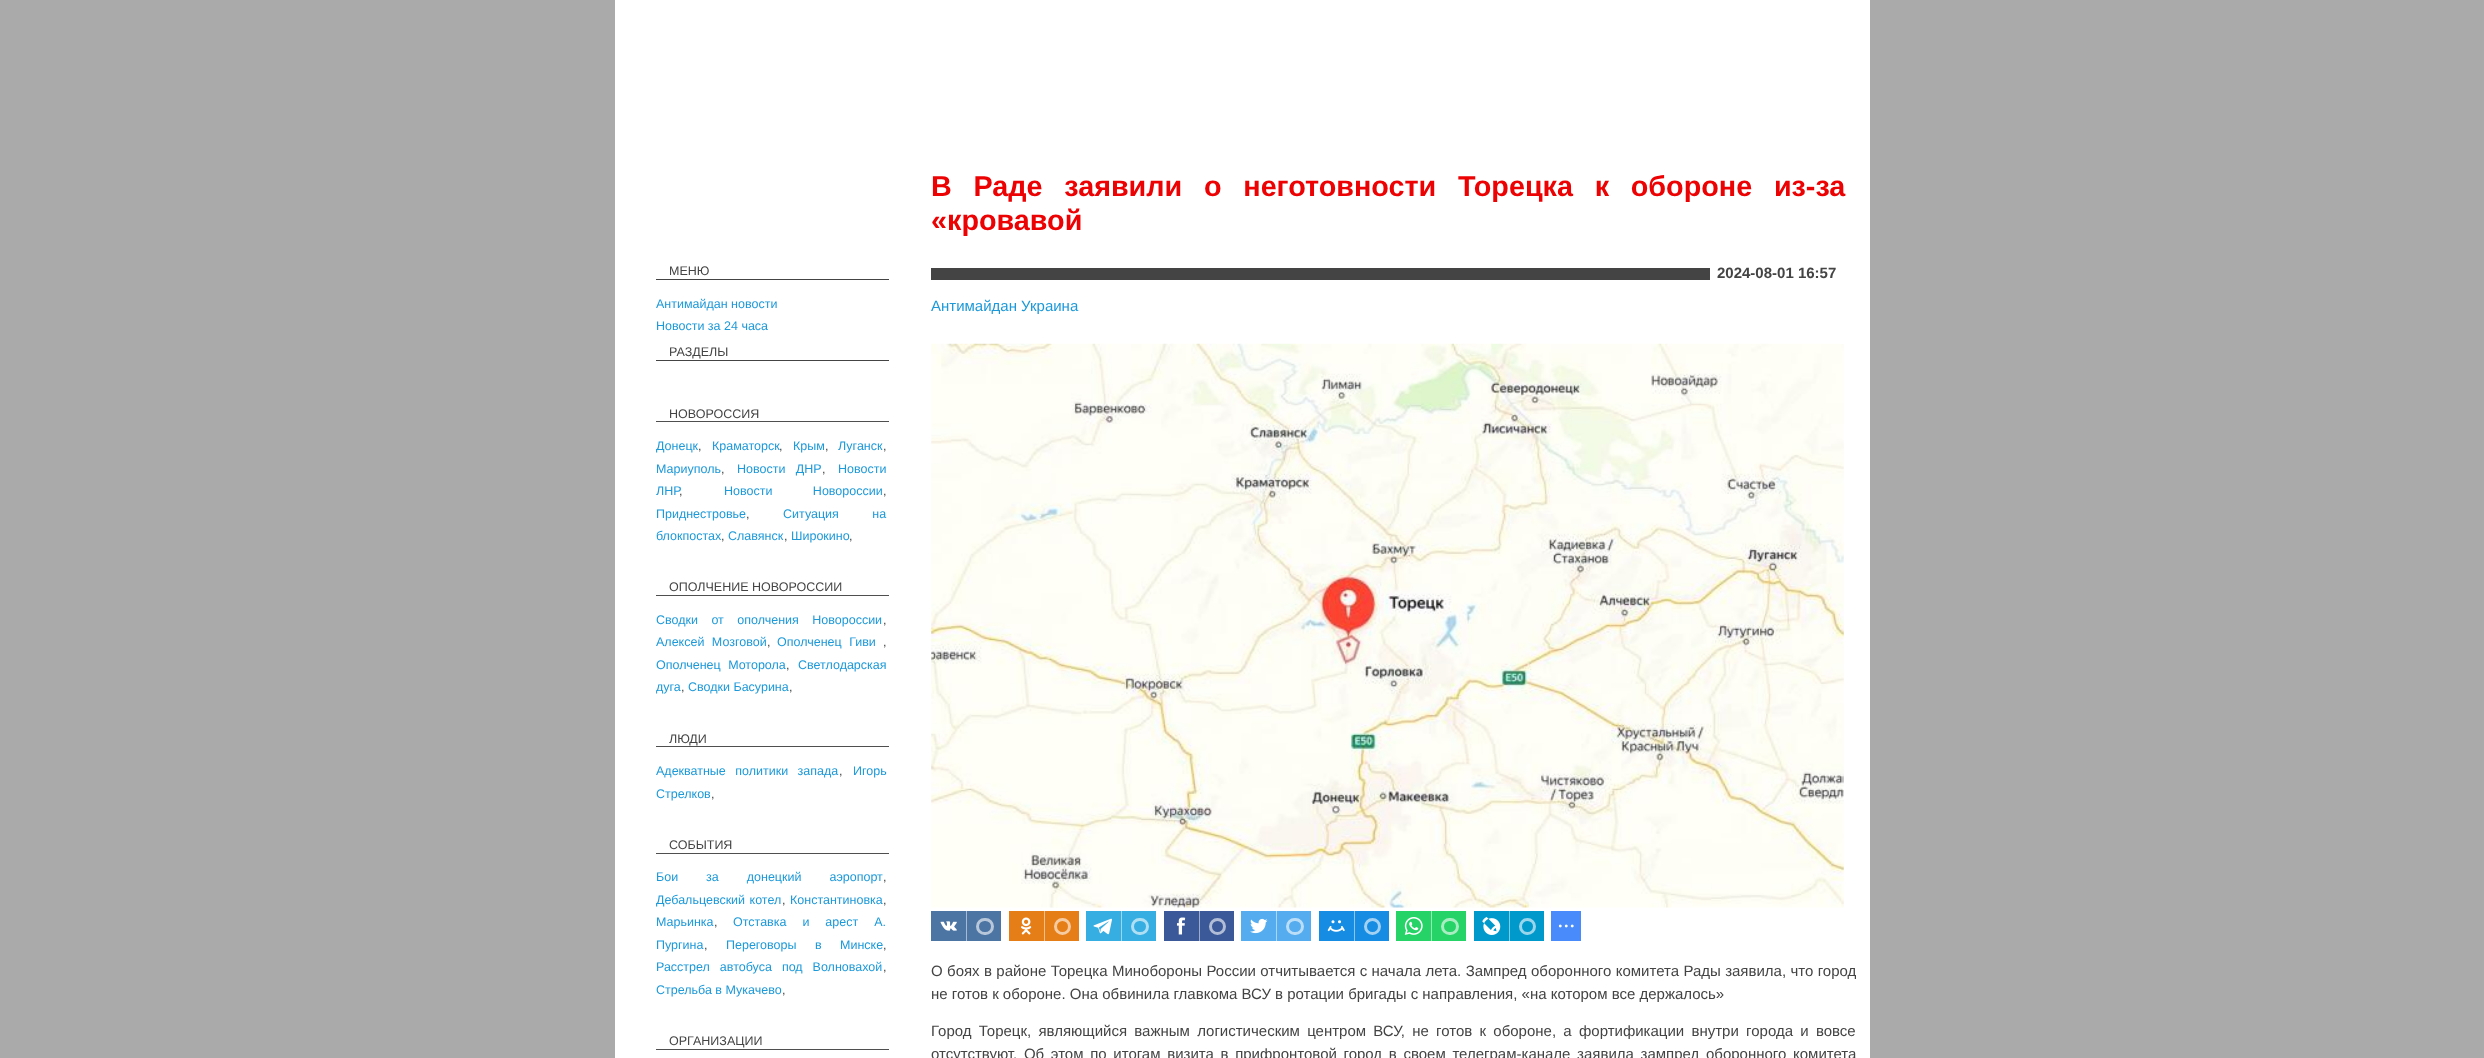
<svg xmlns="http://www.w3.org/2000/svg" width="2484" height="1058">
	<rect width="100%" height="100%" fill="#AAAAAA" />
	<rect x="615" y="0" width="1255" height="1058" fill="#FFFFFF" />
	<g font-family="Liberation Sans" font-size="28.75" font-weight="700" fill="#ED0204">
		<text x="931" y="196" word-spacing="13.75">В Раде заявили о неготовности Торецка к обороне из-за</text>
		<text x="931" y="230">«кровавой</text>
	</g>
	<text x="669" y="275" font-family="Liberation Sans" font-size="12.5" fill="#444444">МЕНЮ</text>
	<rect x="656" y="279" width="233" height="1" fill="#444444" />
	<g font-family="Liberation Sans" font-size="12.5" fill="#1C99D9">
		<text x="656" y="308">Антимайдан новости</text>
		<text x="656" y="330">Новости за 24 часа</text>
	</g>
	<text x="669" y="356" font-family="Liberation Sans" font-size="12.5" fill="#444444">РАЗДЕЛЫ</text>
	<rect x="656" y="360" width="233" height="1" fill="#444444" />
	<text x="669" y="418" font-family="Liberation Sans" font-size="12.5" fill="#444444">НОВОРОССИЯ</text>
	<rect x="656" y="421" width="233" height="1" fill="#4F4F4F" />
	<text x="656" y="450" font-family="Liberation Sans" font-size="12.5" fill="#1C99D9">Донецк</text>
	<text x="698" y="450" font-family="Liberation Sans" font-size="12.5" fill="#444444">,</text>
	<text x="712" y="450" font-family="Liberation Sans" font-size="12.5" fill="#1C99D9">Краматорск</text>
	<text x="779" y="450" font-family="Liberation Sans" font-size="12.5" fill="#444444">,</text>
	<text x="793" y="450" font-family="Liberation Sans" font-size="12.5" fill="#1C99D9">Крым</text>
	<text x="825" y="450" font-family="Liberation Sans" font-size="12.5" fill="#444444">,</text>
	<text x="838" y="450" font-family="Liberation Sans" font-size="12.5" fill="#1C99D9">Луганск</text>
	<text x="883" y="450" font-family="Liberation Sans" font-size="12.5" fill="#444444">,</text>
	<text x="656" y="473" font-family="Liberation Sans" font-size="12.5" fill="#1C99D9">Мариуполь</text>
	<text x="721" y="473" font-family="Liberation Sans" font-size="12.5" fill="#444444">,</text>
	<text x="737" y="473" word-spacing="7" font-family="Liberation Sans" font-size="12.5" fill="#1C99D9">Новости ДНР</text>
	<text x="822" y="473" font-family="Liberation Sans" font-size="12.5" fill="#444444">,</text>
	<g font-family="Liberation Sans" font-size="12.5" fill="#1C99D9">
		<text x="838" y="473">Новости</text>
		<text x="656" y="495">ЛНР</text>
		<text x="724" y="495" word-spacing="37">Новости Новороссии</text>
	</g>
	<g font-family="Liberation Sans" font-size="12.5" fill="#444444">
		<text x="679" y="495">,</text>
		<text x="883" y="495">,</text>
	</g>
	<text x="656" y="518" font-family="Liberation Sans" font-size="12.5" fill="#1C99D9">Приднестровье</text>
	<text x="746" y="518" font-family="Liberation Sans" font-size="12.5" fill="#444444">,</text>
	<g font-family="Liberation Sans" font-size="12.5" fill="#1C99D9">
		<text x="783" y="518" word-spacing="30">Ситуация на</text>
		<text x="656" y="540">блокпостах</text>
	</g>
	<text x="721" y="540" font-family="Liberation Sans" font-size="12.5" fill="#444444">,</text>
	<text x="728" y="540" font-family="Liberation Sans" font-size="12.5" fill="#1C99D9">Славянск</text>
	<text x="784" y="540" font-family="Liberation Sans" font-size="12.5" fill="#444444">,</text>
	<text x="791" y="540" font-family="Liberation Sans" font-size="12.5" fill="#1C99D9">Широкино</text>
	<g font-family="Liberation Sans" font-size="12.5" fill="#444444">
		<text x="849" y="540">,</text>
		<text x="669" y="591">ОПОЛЧЕНИЕ НОВОРОССИИ</text>
	</g>
	<rect x="656" y="595" width="233" height="1" fill="#4F4F4F" />
	<text x="656" y="624" word-spacing="10" font-family="Liberation Sans" font-size="12.5" fill="#1C99D9">Сводки от ополчения Новороссии</text>
	<text x="883" y="624" font-family="Liberation Sans" font-size="12.5" fill="#444444">,</text>
	<text x="656" y="646" word-spacing="4" font-family="Liberation Sans" font-size="12.5" fill="#1C99D9">Алексей Мозговой</text>
	<text x="767" y="646" font-family="Liberation Sans" font-size="12.5" fill="#444444">,</text>
	<text x="777" y="646" word-spacing="4" font-family="Liberation Sans" font-size="12.5" fill="#1C99D9">Ополченец Гиви</text>
	<text x="883" y="646" font-family="Liberation Sans" font-size="12.5" fill="#444444">,</text>
	<text x="656" y="669" word-spacing="4" font-family="Liberation Sans" font-size="12.5" fill="#1C99D9">Ополченец Моторола</text>
	<text x="786" y="669" font-family="Liberation Sans" font-size="12.5" fill="#444444">,</text>
	<g font-family="Liberation Sans" font-size="12.5" fill="#1C99D9">
		<text x="798" y="669">Светлодарская</text>
		<text x="656" y="691">дуга</text>
	</g>
	<text x="681" y="691" font-family="Liberation Sans" font-size="12.5" fill="#444444">,</text>
	<text x="688" y="691" font-family="Liberation Sans" font-size="12.5" fill="#1C99D9">Сводки Басурина</text>
	<g font-family="Liberation Sans" font-size="12.5" fill="#444444">
		<text x="789" y="691">,</text>
		<text x="669" y="743">ЛЮДИ</text>
	</g>
	<rect x="656" y="746" width="233" height="1" fill="#4F4F4F" />
	<text x="656" y="775" word-spacing="6" font-family="Liberation Sans" font-size="12.5" fill="#1C99D9">Адекватные политики запада</text>
	<text x="839" y="775" font-family="Liberation Sans" font-size="12.5" fill="#444444">,</text>
	<g font-family="Liberation Sans" font-size="12.5" fill="#1C99D9">
		<text x="853" y="775">Игорь</text>
		<text x="656" y="798">Стрелков</text>
	</g>
	<g font-family="Liberation Sans" font-size="12.5" fill="#444444">
		<text x="711" y="798">,</text>
		<text x="669" y="849">СОБЫТИЯ</text>
	</g>
	<rect x="656" y="853" width="233" height="1" fill="#4F4F4F" />
	<text x="656" y="881" word-spacing="24.5" font-family="Liberation Sans" font-size="12.5" fill="#1C99D9">Бои за донецкий аэропорт</text>
	<text x="883" y="881" font-family="Liberation Sans" font-size="12.5" fill="#444444">,</text>
	<text x="656" y="904" word-spacing="1" font-family="Liberation Sans" font-size="12.5" fill="#1C99D9">Дебальцевский котел</text>
	<text x="782" y="904" font-family="Liberation Sans" font-size="12.5" fill="#444444">,</text>
	<text x="790" y="904" font-family="Liberation Sans" font-size="12.5" fill="#1C99D9">Константиновка</text>
	<text x="883" y="904" font-family="Liberation Sans" font-size="12.5" fill="#444444">,</text>
	<text x="656" y="926" font-family="Liberation Sans" font-size="12.5" fill="#1C99D9">Марьинка</text>
	<text x="714" y="926" font-family="Liberation Sans" font-size="12.5" fill="#444444">,</text>
	<g font-family="Liberation Sans" font-size="12.5" fill="#1C99D9">
		<text x="733" y="926" word-spacing="12.5">Отставка и арест А.</text>
		<text x="656" y="949">Пургина</text>
	</g>
	<text x="704" y="949" font-family="Liberation Sans" font-size="12.5" fill="#444444">,</text>
	<text x="726" y="949" word-spacing="15" font-family="Liberation Sans" font-size="12.5" fill="#1C99D9">Переговоры в Минске</text>
	<text x="883" y="949" font-family="Liberation Sans" font-size="12.5" fill="#444444">,</text>
	<text x="656" y="971" word-spacing="6.5" font-family="Liberation Sans" font-size="12.5" fill="#1C99D9">Расстрел автобуса под Волновахой</text>
	<text x="883" y="971" font-family="Liberation Sans" font-size="12.5" fill="#444444">,</text>
	<text x="656" y="994" font-family="Liberation Sans" font-size="12.5" fill="#1C99D9">Стрельба в Мукачево</text>
	<g font-family="Liberation Sans" font-size="12.5" fill="#444444">
		<text x="782" y="994">,</text>
		<text x="669" y="1045">ОРГАНИЗАЦИИ</text>
	</g>
	<rect x="656" y="1049" width="233" height="1" fill="#4F4F4F" />
	<rect x="931" y="268" width="779" height="12" fill="#444444" />
	<text x="1717" y="278" font-family="Liberation Sans" font-size="15" font-weight="700" fill="#444444">2024-08-01 16:57</text>
	<text x="931" y="311" font-family="Liberation Sans" font-size="15" fill="#1C99D9">Антимайдан Украина</text>
	<image x="931" y="343" width="913" height="565" href="assets/img1.png" />
	<rect x="931" y="911" width="70" height="30" fill="#4D75A3" />
	<image x="940" y="921" width="17" height="10" href="assets/img2.png" />
	<rect x="966" y="911" width="1" height="30" fill="#A6BAD1" />
	<rect x="977.5" y="919.5" width="15" height="14" rx="7" fill="none" stroke="#B8C8DA" stroke-width="3" />
	<rect x="1009" y="911" width="70" height="30" fill="#E67E17" />
	<image x="1021" y="917" width="11" height="18" href="assets/img3.png" />
	<rect x="1044" y="911" width="1" height="30" fill="#F3BF8B" />
	<circle cx="1062.5" cy="926.5" r="7" fill="none" stroke="#F5CBA2" stroke-width="3" />
	<rect x="1086" y="911" width="70" height="30" fill="#37AEE2" />
	<image x="1093" y="918" width="19" height="17" href="assets/img4.png" />
	<rect x="1121" y="911" width="1" height="30" fill="#9BD7F1" />
	<rect x="1132.5" y="919.5" width="15" height="14" rx="7" fill="none" stroke="#AFDFF3" stroke-width="3" />
	<rect x="1164" y="911" width="70" height="30" fill="#3B5998" />
	<image x="1176" y="917" width="10" height="18" href="assets/img5.png" />
	<rect x="1199" y="911" width="1" height="30" fill="#9DACCC" />
	<circle cx="1217.5" cy="926.5" r="7" fill="none" stroke="#B1BDD6" stroke-width="3" />
	<rect x="1241" y="911" width="70" height="30" fill="#55ACEE" />
	<image x="1250" y="918" width="18" height="16" href="assets/img6.png" />
	<rect x="1276" y="911" width="1" height="30" fill="#AAD6F7" />
	<rect x="1287.5" y="919.5" width="15" height="14" rx="7" fill="none" stroke="#BBDEF8" stroke-width="3" />
	<rect x="1319" y="911" width="70" height="30" fill="#168DE2" />
	<image x="1327" y="920" width="18" height="12" href="assets/img7.png" />
	<rect x="1354" y="911" width="1" height="30" fill="#8BC6F1" />
	<circle cx="1372.5" cy="926.5" r="7" fill="none" stroke="#A2D1F3" stroke-width="3" />
	<rect x="1396" y="911" width="70" height="30" fill="#25D366" />
	<image x="1404" y="917" width="19" height="18" href="assets/img8.png" />
	<rect x="1431" y="911" width="1" height="30" fill="#92E9B3" />
	<rect x="1442.5" y="919.5" width="15" height="14" rx="7" fill="none" stroke="#A8EDC2" stroke-width="3" />
	<rect x="1474" y="911" width="70" height="30" fill="#0099CC" />
	<image x="1482" y="917" width="19" height="18" href="assets/img9.png" />
	<rect x="1509" y="911" width="1" height="30" fill="#80CCE6" />
	<circle cx="1527.5" cy="926.5" r="7" fill="none" stroke="#99D6EB" stroke-width="3" />
	<rect x="1551" y="911" width="30" height="30" fill="#498BFA" />
	<image x="1558" y="924" width="16" height="4" href="assets/img10.png" />
	<g font-family="Liberation Sans" font-size="15" fill="#444444">
		<text x="931" y="976" word-spacing="0.2">О боях в районе Торецка Минобороны России отчитывается с начала лета. Зампред оборонного комитета Рады заявила, что город</text>
		<text x="931" y="999">не готов к обороне. Она обвинила главкома ВСУ в ротации бригады с направления, «на котором все держалось»</text>
		<text x="931" y="1036" word-spacing="3.1">Город Торецк, являющийся важным логистическим центром ВСУ, не готов к обороне, а фортификации внутри города и вовсе</text>
		<text x="931" y="1059" word-spacing="2.5">отсутствуют. Об этом по итогам визита в прифронтовой город в своем телеграм-канале заявила зампред оборонного комитета</text>
	</g>
</svg>
